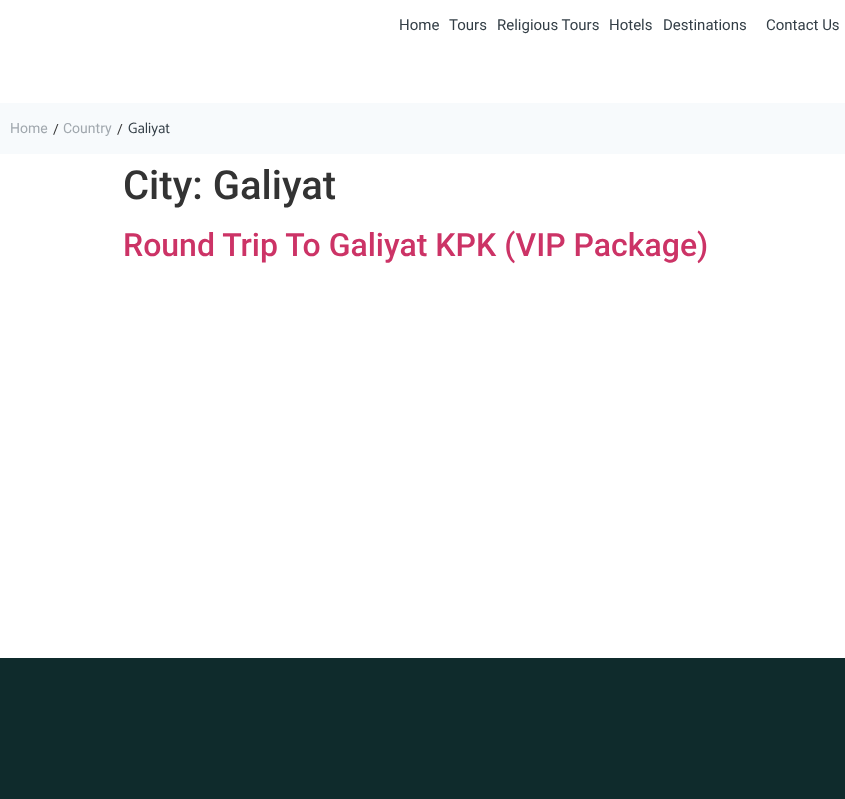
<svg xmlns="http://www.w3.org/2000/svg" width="845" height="799">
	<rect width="100%" height="100%" fill="#FFFFFF" />
	<g font-family="Roboto" font-size="15" fill="#333E46">
		<text x="399" y="30">Home</text>
		<text x="449" y="30">Tours</text>
		<text x="497" y="30">Religious Tours</text>
		<text x="609" y="30">Hotels</text>
		<text x="663" y="30">Destinations</text>
		<text x="766" y="30">Contact Us</text>
	</g>
	<rect x="0" y="103" width="845" height="51" fill="#F7FAFC" />
	<text x="10" y="133" font-family="Roboto" font-size="14" fill="#A1A8AE">Home</text>
	<text x="53" y="134" font-family="Roboto" font-size="14" fill="#333333">/</text>
	<text x="63" y="133" font-family="Roboto" font-size="14" fill="#A1A8AE">Country</text>
	<text x="117" y="134" font-family="Roboto" font-size="14" fill="#333333">/</text>
	<text x="128" y="133" font-family="Catamaran" font-size="15" fill="#333E46">Galiyat</text>
	<text x="123" y="199" font-family="Roboto" font-size="40" font-weight="500" fill="#333333">City: Galiyat</text>
	<text x="123" y="256" font-family="Roboto" font-size="32" font-weight="500" fill="#CC3366">Round Trip To Galiyat KPK (VIP Package)</text>
	<rect x="0" y="658" width="845" height="141" fill="#0F2B2C" />
</svg>
